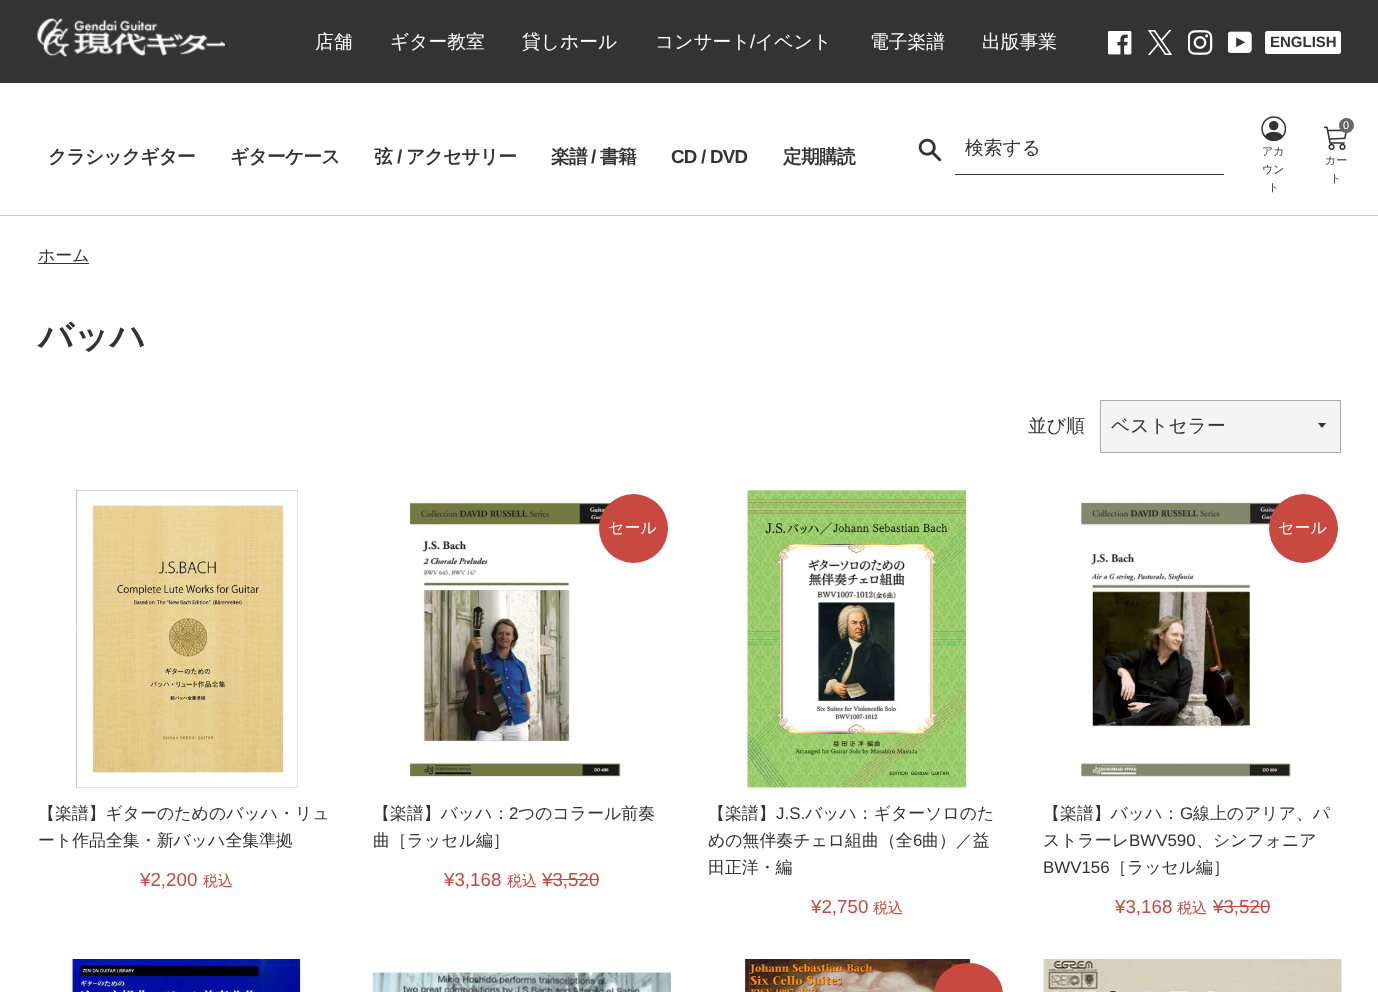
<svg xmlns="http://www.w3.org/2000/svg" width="1378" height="992">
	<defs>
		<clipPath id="clip1"><rect x="1318" y="423" width="10" height="6" /></clipPath>
	</defs>
	<rect width="100%" height="100%" fill="#FFFFFF" />
	<rect x="0" y="0" width="1378" height="83" fill="#333333" />
	<image x="37" y="18" width="188" height="39" href="assets/img1.png" />
	<g font-family="WenQuanYi Zen Hei" font-size="18.75" font-weight="500" fill="#FFFFFF">
		<text x="315" y="48">店舗</text>
		<text x="390" y="48">ギター教室</text>
		<text x="522" y="48">貸しホール</text>
		<text x="655" y="48">コンサート</text>
	</g>
	<text x="750" y="48" font-family="Liberation Sans" font-size="18.75" fill="#FFFFFF">/</text>
	<g font-family="WenQuanYi Zen Hei" font-size="18.75" font-weight="500" fill="#FFFFFF">
		<text x="755" y="48">イベント</text>
		<text x="870" y="48">電子楽譜</text>
		<text x="982" y="48">出版事業</text>
	</g>
	<image x="1108" y="31" width="24" height="24" href="assets/img2.png" />
	<image x="1148" y="30" width="25" height="25" href="assets/img3.png" />
	<image x="1188" y="30" width="25" height="25" href="assets/img4.png" />
	<image x="1228" y="31" width="24" height="22" href="assets/img5.png" />
	<rect x="1265" y="31" width="76" height="23" rx="2.5" fill="#FFFFFF" />
	<text x="1270" y="47" font-family="Liberation Sans" font-size="15" font-weight="700" fill="#333333">ENGLISH</text>
	<rect x="0" y="215" width="1378" height="1" fill="#CCCCCC" />
	<g font-family="WenQuanYi Zen Hei" font-size="18.75" font-weight="700" letter-spacing="-0.75" fill="#333333">
		<text x="48" y="163">クラシックギター</text>
		<text x="230" y="163">ギターケース</text>
		<text x="374" y="163">弦</text>
	</g>
	<text x="397" y="163" font-family="Liberation Sans" font-size="18.75" font-weight="700" letter-spacing="-0.75" fill="#333333">/</text>
	<g font-family="WenQuanYi Zen Hei" font-size="18.75" font-weight="700" letter-spacing="-0.75" fill="#333333">
		<text x="406" y="163">アクセサリー</text>
		<text x="551" y="163">楽譜</text>
	</g>
	<text x="591" y="163" font-family="Liberation Sans" font-size="18.75" font-weight="700" letter-spacing="-0.75" fill="#333333">/</text>
	<text x="600" y="163" font-family="WenQuanYi Zen Hei" font-size="18.75" font-weight="700" letter-spacing="-0.75" fill="#333333">書籍</text>
	<text x="671" y="163" font-family="Liberation Sans" font-size="18.75" font-weight="700" letter-spacing="-0.75" fill="#333333">CD / DVD</text>
	<text x="783" y="163" font-family="WenQuanYi Zen Hei" font-size="18.75" font-weight="700" letter-spacing="-0.75" fill="#333333">定期購読</text>
	<image x="918" y="138" width="24" height="24" href="assets/img6.png" />
	<rect x="955" y="174" width="269" height="1" fill="#333333" />
	<text x="965" y="154" font-family="WenQuanYi Zen Hei" font-size="18.75" font-weight="500" fill="#333333">検索する</text>
	<image x="1261" y="116" width="25" height="25" href="assets/img7.png" />
	<g font-family="WenQuanYi Zen Hei" font-size="11" font-weight="500" fill="#333333">
		<text x="1262" y="155">アカ</text>
		<text x="1262" y="173">ウン</text>
		<text x="1268" y="191">ト</text>
	</g>
	<image x="1324" y="126" width="23" height="24" href="assets/img8.png" />
	<circle cx="1346.5" cy="125.5" r="7.5" fill="#666666" />
	<text x="1343" y="129" font-family="Liberation Sans" font-size="11" fill="#FFFFFF">0</text>
	<g font-family="WenQuanYi Zen Hei" font-size="11" font-weight="500" fill="#333333">
		<text x="1325" y="164">カー</text>
		<text x="1330" y="182">ト</text>
	</g>
	<text x="38" y="261" font-family="WenQuanYi Zen Hei" font-size="16.9" font-weight="500" fill="#333333">ホーム</text>
	<rect x="38" y="263" width="51" height="1" fill="#333333" />
	<text x="38" y="348" font-family="WenQuanYi Zen Hei" font-size="35" font-weight="700" fill="#333333">バッハ</text>
	<text x="1028" y="432" font-family="WenQuanYi Zen Hei" font-size="18.75" font-weight="500" fill="#333333">並び順</text>
	<rect x="1101" y="401" width="239" height="51" fill="#F4F4F4" />
	<g clip-path="url(#clip1)">
		<path d="M1317.5 422.5L1322 428L1326.5 422.5Z" fill="#333333" />
	</g>
	<rect x="1100.5" y="400.5" width="240" height="52" fill="none" stroke="#AAAAAA" />
	<text x="1111" y="432" font-family="WenQuanYi Zen Hei" font-size="18.75" font-weight="500" fill="#333333">ベストセラー</text>
	<image x="76" y="490" width="222" height="298" href="assets/img9.png" />
	<g font-family="WenQuanYi Zen Hei" font-size="16.9" font-weight="500" fill="#333333">
		<text x="38" y="819">【楽譜】ギターのためのバッハ・リュ</text>
		<text x="38" y="846">ート作品全集・新バッハ全集準拠</text>
	</g>
	<text x="140" y="886" font-family="Liberation Sans" font-size="18.75" fill="#C8493F">¥2,200</text>
	<text x="203" y="886" font-family="WenQuanYi Zen Hei" font-size="15" font-weight="500" fill="#C8493F">税込</text>
	<image x="409" y="501" width="215" height="281" href="assets/img10.png" />
	<circle cx="633.5" cy="528.5" r="34.5" fill="#C8493F" />
	<text x="608" y="533" font-family="WenQuanYi Zen Hei" font-size="16" font-weight="500" fill="#FFFFFF">セール</text>
	<text x="444" y="886" font-family="Liberation Sans" font-size="18.75" fill="#C8493F">¥3,168</text>
	<text x="507" y="886" font-family="WenQuanYi Zen Hei" font-size="15" font-weight="500" fill="#C8493F">税込</text>
	<text x="542" y="886" font-family="Liberation Sans" font-size="18.75" fill="#C8493F">¥3,520</text>
	<rect x="543" y="879" width="56" height="1" fill="#C8493F" />
	<text x="373" y="819" font-family="WenQuanYi Zen Hei" font-size="16.9" font-weight="500" fill="#333333">【楽譜】バッハ：</text>
	<text x="509" y="819" font-family="Liberation Sans" font-size="16.9" fill="#333333">2</text>
	<g font-family="WenQuanYi Zen Hei" font-size="16.9" font-weight="500" fill="#333333">
		<text x="518" y="819">つのコラール前奏</text>
		<text x="373" y="846">曲［ラッセル編］</text>
	</g>
	<image x="747" y="490" width="220" height="298" href="assets/img11.png" />
	<text x="708" y="819" font-family="WenQuanYi Zen Hei" font-size="16.9" font-weight="500" fill="#333333">【楽譜】</text>
	<text x="776" y="819" font-family="Liberation Sans" font-size="16.9" fill="#333333">J.S.</text>
	<g font-family="WenQuanYi Zen Hei" font-size="16.9" font-weight="500" fill="#333333">
		<text x="805" y="819">バッハ：ギターソロのた</text>
		<text x="708" y="846">めの無伴奏チェロ組曲（全</text>
	</g>
	<text x="913" y="846" font-family="Liberation Sans" font-size="16.9" fill="#333333">6</text>
	<g font-family="WenQuanYi Zen Hei" font-size="16.9" font-weight="500" fill="#333333">
		<text x="922" y="846">曲）／益</text>
		<text x="708" y="873">田正洋・編</text>
	</g>
	<text x="811" y="913" font-family="Liberation Sans" font-size="18.75" fill="#C8493F">¥2,750</text>
	<text x="873" y="913" font-family="WenQuanYi Zen Hei" font-size="15" font-weight="500" fill="#C8493F">税込</text>
	<image x="1081" y="500" width="213" height="282" href="assets/img12.png" />
	<circle cx="1303.5" cy="528.5" r="34.5" fill="#C8493F" />
	<text x="1278" y="533" font-family="WenQuanYi Zen Hei" font-size="16" font-weight="500" fill="#FFFFFF">セール</text>
	<text x="1115" y="913" font-family="Liberation Sans" font-size="18.75" fill="#C8493F">¥3,168</text>
	<text x="1177" y="913" font-family="WenQuanYi Zen Hei" font-size="15" font-weight="500" fill="#C8493F">税込</text>
	<text x="1213" y="913" font-family="Liberation Sans" font-size="18.75" fill="#C8493F">¥3,520</text>
	<rect x="1213" y="906" width="57" height="1" fill="#C8493F" />
	<text x="1043" y="819" font-family="WenQuanYi Zen Hei" font-size="16.9" font-weight="500" fill="#333333">【楽譜】バッハ：</text>
	<text x="1180" y="819" font-family="Liberation Sans" font-size="16.9" fill="#333333">G</text>
	<g font-family="WenQuanYi Zen Hei" font-size="16.9" font-weight="500" fill="#333333">
		<text x="1193" y="819">線上のアリア、パ</text>
		<text x="1043" y="846">ストラーレ</text>
	</g>
	<text x="1129" y="846" font-family="Liberation Sans" font-size="16.9" fill="#333333">BWV590</text>
	<text x="1196" y="846" font-family="WenQuanYi Zen Hei" font-size="16.9" font-weight="500" fill="#333333">、シンフォニア</text>
	<text x="1043" y="873" font-family="Liberation Sans" font-size="16.9" fill="#333333">BWV156</text>
	<text x="1110" y="873" font-family="WenQuanYi Zen Hei" font-size="16.9" font-weight="500" fill="#333333">［ラッセル編］</text>
	<image x="72" y="959" width="229" height="33" href="assets/img13.png" />
	<image x="373" y="972" width="298" height="20" href="assets/img14.png" />
	<image x="744" y="959" width="227" height="33" href="assets/img15.png" />
	<rect x="934" y="963" width="69" height="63" rx="34" fill="#C8493F" />
	<image x="1043" y="959" width="299" height="33" href="assets/img16.png" />
</svg>
